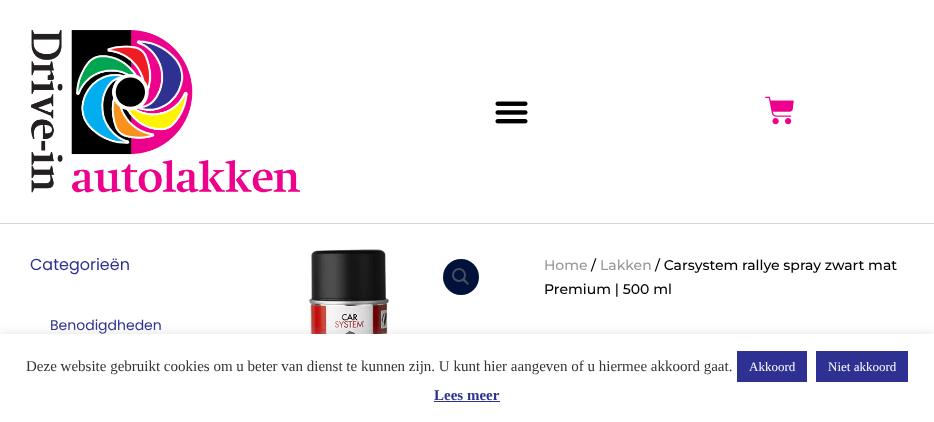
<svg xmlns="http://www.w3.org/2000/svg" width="934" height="422">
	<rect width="100%" height="100%" fill="#FFFFFF" />
	<rect x="0" y="223" width="934" height="1" fill="#D6D6D6" />
	<image x="30" y="30" width="270" height="163" href="assets/img1.png" />
	<image x="495" y="101" width="33" height="23" href="assets/img2.png" />
	<image x="765" y="96" width="29" height="29" href="assets/img3.png" />
	<text x="30" y="270" font-family="Poppins" font-size="16" fill="#2E3192">Categorieën</text>
	<text x="50" y="330" font-family="Poppins" font-size="14" fill="#2E3192">Benodigdheden</text>
	<image x="308" y="249" width="81" height="85" href="assets/img4.png" />
	<circle cx="461" cy="277" r="18" fill="#00123A" />
	<circle cx="459" cy="275" r="6" fill="none" stroke="#415161" stroke-width="2" />
	<path d="M463 279C464 277.5 466 280.5 466.5 281C467 281.5 469.5 283.5 468.5 284.5C467.5 285.5 465.5 283 465 282.5C464.5 282 461.5 280 463 279Z" fill="#415161" />
	<text x="544" y="270" font-family="Montserrat" font-size="14" font-weight="500" fill="#97999C">Home</text>
	<text x="591" y="270" font-family="Montserrat" font-size="14" font-weight="500" fill="#000000">/</text>
	<text x="600" y="270" font-family="Montserrat" font-size="14" font-weight="500" fill="#97999C">Lakken</text>
	<g font-family="Montserrat" font-size="14" font-weight="500" fill="#000000">
		<text x="655" y="270">/ Carsystem rallye spray zwart mat</text>
		<text x="544" y="294">Premium | 500 ml</text>
	</g>
	<rect x="0" y="333" width="934" height="88" fill="#ACABAB" fill-opacity="0.3" filter="blur(5px)" />
	<rect x="0" y="334" width="934" height="88" fill="#FFFFFF" />
	<text x="26" y="371" font-family="Liberation Serif" font-size="15" fill="#333333">Deze website gebruikt cookies om u beter van dienst te kunnen zijn. U kunt hier aangeven of u hiermee akkoord gaat.</text>
	<rect x="737" y="351" width="70" height="31" fill="#2E3192" />
	<text x="749" y="371" font-family="Liberation Serif" font-size="13" fill="#FFFFFF">Akkoord</text>
	<rect x="816" y="351" width="92" height="31" fill="#2E3192" />
	<text x="828" y="371" font-family="Liberation Serif" font-size="13" fill="#FFFFFF">Niet akkoord</text>
	<text x="434" y="400" font-family="Liberation Serif" font-size="15" font-weight="700" fill="#2E3192">Lees meer</text>
	<rect x="434" y="401" width="66" height="1" fill="#2E3192" />
</svg>
